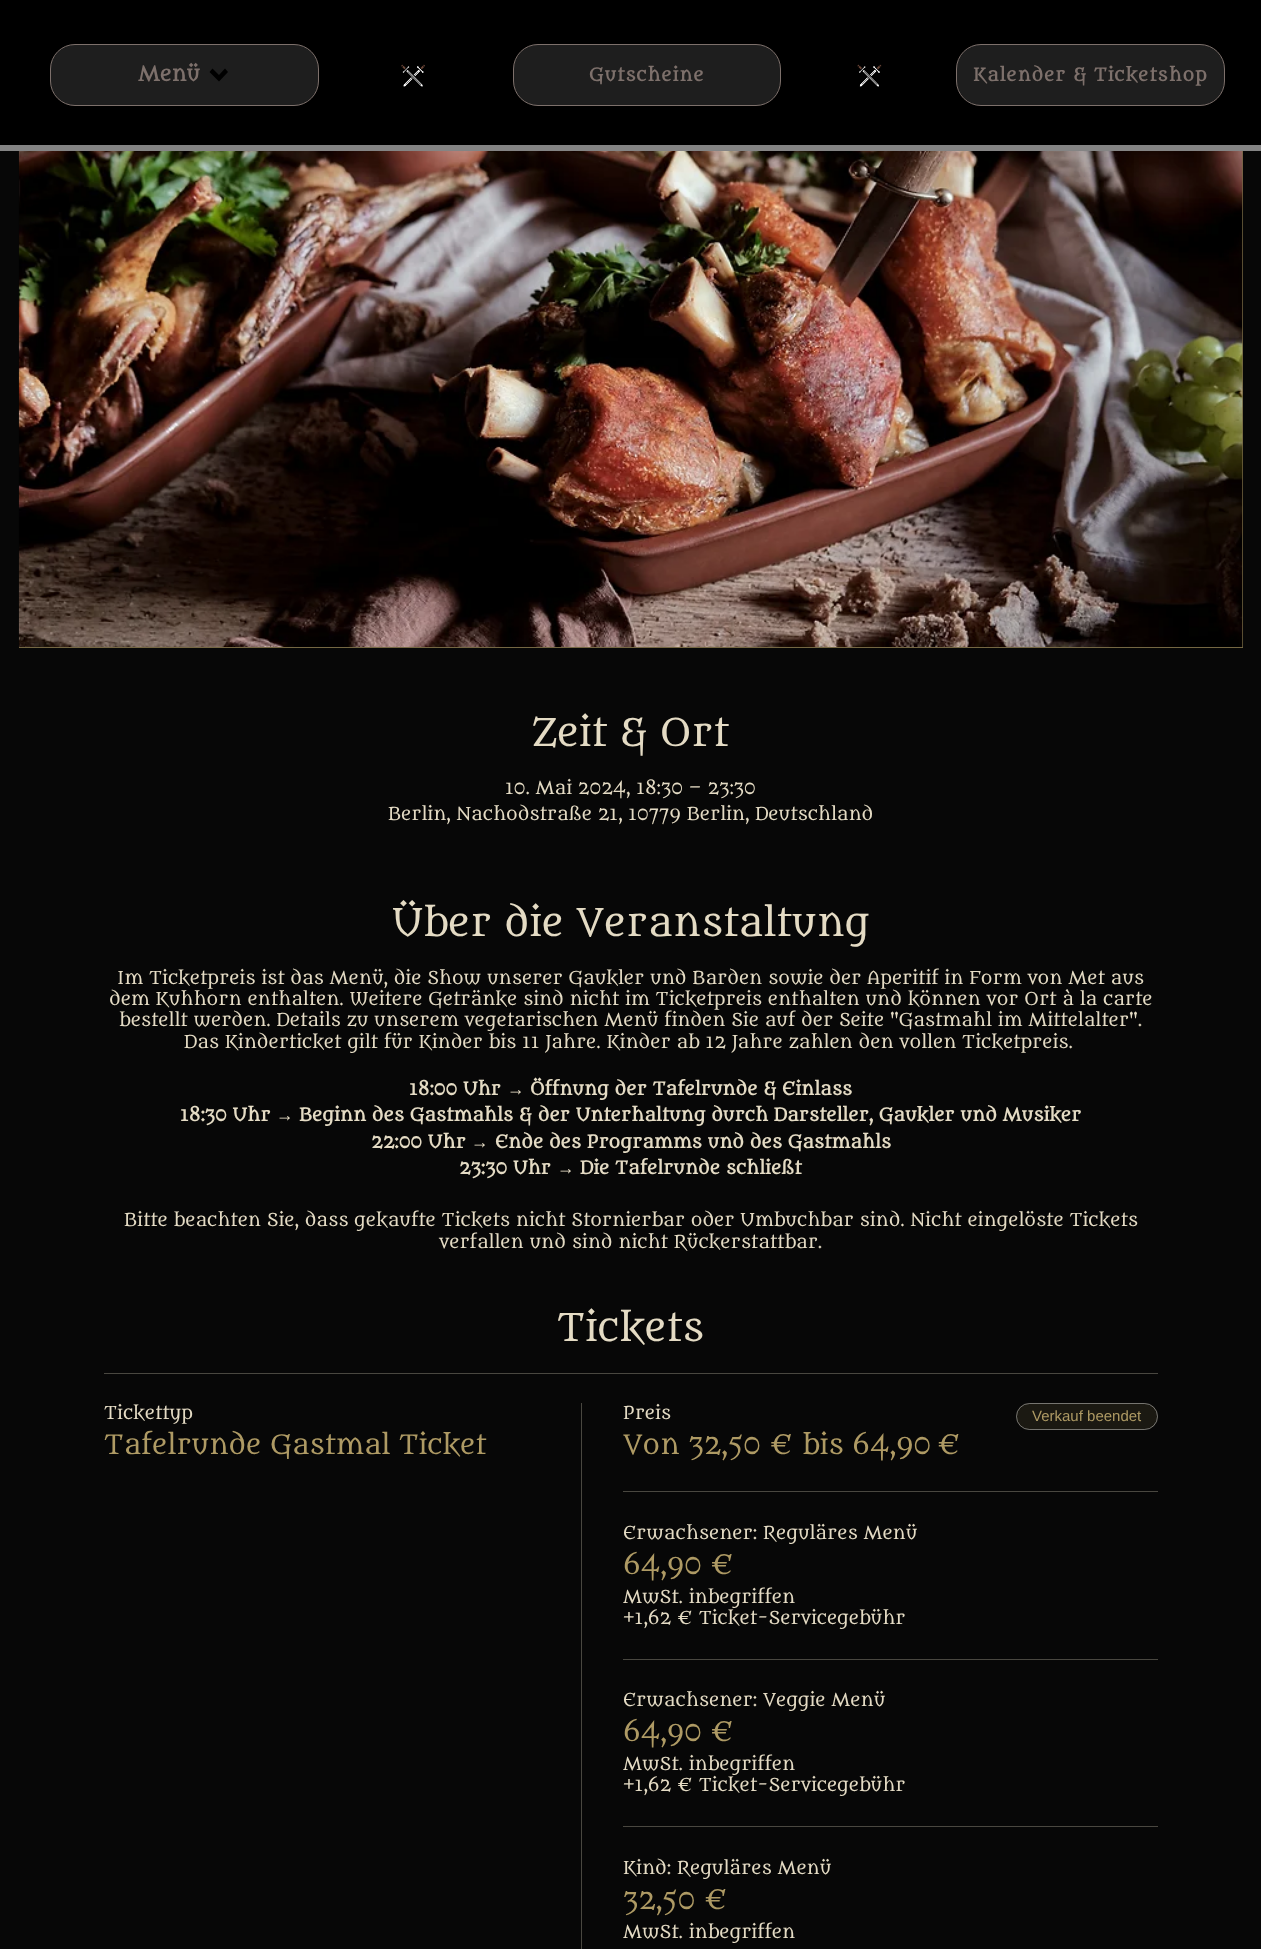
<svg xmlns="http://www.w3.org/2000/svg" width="1261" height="1949">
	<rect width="100%" height="100%" fill="#070707" />
	<rect x="0" y="0" width="1261" height="145" fill="#000000" />
	<rect x="0" y="145" width="1261" height="6" fill="#848484" />
	<rect x="50.5" y="44.5" width="268" height="61" rx="24.5" fill="#1E1E1E" stroke="#7D706B" />
	<text x="138" y="81" font-family="Metamorphous" font-size="20" font-weight="700" fill="#7D706B">Menü</text>
	<path d="M219 75L225 68.5L228 72L219 81.5L209.5 72L212.5 68.5Z" fill="#000000" />
	<image x="401" y="64" width="24" height="23" href="assets/img1.png" />
	<rect x="513.5" y="44.5" width="267" height="61" rx="24.5" fill="#1E1E1E" stroke="#7D706B" />
	<text x="589" y="81" font-family="Metamorphous" font-size="17.5" font-weight="700" letter-spacing="0.9" fill="#7D706B">Gutscheine</text>
	<image x="857" y="64" width="25" height="23" href="assets/img2.png" />
	<rect x="956.5" y="44.5" width="268" height="61" rx="24.5" fill="#1E1E1E" stroke="#7D706B" />
	<text x="973" y="81" font-family="Metamorphous" font-size="17.5" font-weight="700" letter-spacing="0.9" fill="#7D706B">Kalender &amp; Ticketshop</text>
	<rect x="19" y="151" width="1224" height="497" fill="#746743" />
	<image x="18" y="151" width="1225" height="496" href="assets/img3.png" />
	<text x="532" y="746" font-family="Metamorphous" font-size="37.5" fill="#E4DBC4">Zeit &amp; Ort</text>
	<g font-family="Metamorphous" font-size="17.5" fill="#E4DBC4">
		<text x="505" y="794">10. Mai 2024, 18:30 – 23:30</text>
		<text x="388" y="820">Berlin, Nachodstraße 21, 10779 Berlin, Deutschland</text>
	</g>
	<text x="392" y="936" font-family="Metamorphous" font-size="37.5" fill="#E4DBC4">Über die Veranstaltung</text>
	<g font-family="Metamorphous" font-size="17.5" fill="#E4DBC4">
		<text x="117" y="984">Im Ticketpreis ist das Menü, die Show unserer Gaukler und Barden sowie der Aperitif in Form von Met aus</text>
		<text x="109" y="1005">dem Kuhhorn enthalten. Weitere Getränke sind nicht im Ticketpreis enthalten und können vor Ort à la carte</text>
		<text x="119" y="1026">bestellt werden. Details zu unserem vegetarischen Menü finden Sie auf der Seite "Gastmahl im Mittelalter".</text>
		<text x="184" y="1048">Das Kinderticket gilt für Kinder bis 11 Jahre. Kinder ab 12 Jahre zahlen den vollen Ticketpreis.</text>
	</g>
	<text x="409" y="1095" font-family="Metamorphous" font-size="17.5" font-weight="700" fill="#E4DBC4">18:00 Uhr</text>
	<text x="507" y="1095" font-family="Liberation Serif" font-size="17.5" font-weight="700" fill="#E4DBC4">→</text>
	<g font-family="Metamorphous" font-size="17.5" font-weight="700" fill="#E4DBC4">
		<text x="530" y="1095">Öffnung der Tafelrunde &amp; Einlass</text>
		<text x="180" y="1121">18:30 Uhr</text>
	</g>
	<text x="276" y="1121" font-family="Liberation Serif" font-size="17.5" font-weight="700" fill="#E4DBC4">→</text>
	<g font-family="Metamorphous" font-size="17.5" font-weight="700" fill="#E4DBC4">
		<text x="299" y="1121">Beginn des Gastmahls &amp; der Unterhaltung durch Darsteller, Gaukler und Musiker</text>
		<text x="371" y="1148">22:00 Uhr</text>
	</g>
	<text x="471" y="1148" font-family="Liberation Serif" font-size="17.5" font-weight="700" fill="#E4DBC4">→</text>
	<g font-family="Metamorphous" font-size="17.5" font-weight="700" fill="#E4DBC4">
		<text x="495" y="1148">Ende des Programms und des Gastmahls</text>
		<text x="459" y="1174">23:30 Uhr</text>
	</g>
	<text x="557" y="1174" font-family="Liberation Serif" font-size="17.5" font-weight="700" fill="#E4DBC4">→</text>
	<text x="580" y="1174" font-family="Metamorphous" font-size="17.5" font-weight="700" fill="#E4DBC4">Die Tafelrunde schließt</text>
	<g font-family="Metamorphous" font-size="17.5" fill="#E4DBC4">
		<text x="124" y="1226">Bitte beachten Sie, dass gekaufte Tickets nicht Stornierbar oder Umbuchbar sind. Nicht eingelöste Tickets</text>
		<text x="439" y="1248">verfallen und sind nicht Rückerstattbar.</text>
	</g>
	<text x="557" y="1341" font-family="Metamorphous" font-size="37.5" fill="#E4DBC4">Tickets</text>
	<rect x="104" y="1373" width="1054" height="1" fill="#494740" />
	<text x="104" y="1419" font-family="Metamorphous" font-size="17.5" fill="#E4DBC4">Tickettyp</text>
	<text x="104" y="1454" font-family="Metamorphous" font-size="26.25" fill="#AE9A64">Tafelrunde Gastmal Ticket</text>
	<rect x="581" y="1403" width="1" height="546" fill="#494740" />
	<text x="623" y="1419" font-family="Metamorphous" font-size="17.5" fill="#E4DBC4">Preis</text>
	<text x="623" y="1454" font-family="Metamorphous" font-size="26.25" fill="#AE9A64">Von 32,50 € bis 64,90</text>
	<text x="937" y="1454" font-family="Metamorphous" font-size="26.25" fill="#AE9A64">€</text>
	<rect x="1016" y="1403" width="142" height="27" rx="13.5" fill="#1B1912" />
	<rect x="1016.5" y="1403.5" width="141" height="26" rx="13" fill="none" stroke="#FFFFFF" stroke-opacity="0.4" />
	<text x="1032" y="1421" font-family="Liberation Sans" font-size="15" fill="#AE9A64">Verkauf beendet</text>
	<rect x="623" y="1491" width="535" height="1" fill="#494740" />
	<text x="623" y="1539" font-family="Metamorphous" font-size="17.5" fill="#E4DBC4">Erwachsener: Reguläres Menü</text>
	<text x="623" y="1574" font-family="Metamorphous" font-size="26.25" fill="#AE9A64">64,90 €</text>
	<g font-family="Metamorphous" font-size="17.5" fill="#E4DBC4">
		<text x="623" y="1603">MwSt. inbegriffen</text>
		<text x="623" y="1624">+1,62 € Ticket-Servicegebühr</text>
	</g>
	<rect x="623" y="1659" width="535" height="1" fill="#494740" />
	<text x="623" y="1706" font-family="Metamorphous" font-size="17.5" fill="#E4DBC4">Erwachsener: Veggie Menü</text>
	<text x="623" y="1741" font-family="Metamorphous" font-size="26.25" fill="#AE9A64">64,90 €</text>
	<g font-family="Metamorphous" font-size="17.5" fill="#E4DBC4">
		<text x="623" y="1770">MwSt. inbegriffen</text>
		<text x="623" y="1791">+1,62 € Ticket-Servicegebühr</text>
	</g>
	<rect x="623" y="1826" width="535" height="1" fill="#494740" />
	<text x="623" y="1874" font-family="Metamorphous" font-size="17.5" fill="#E4DBC4">Kind: Reguläres Menü</text>
	<text x="623" y="1909" font-family="Metamorphous" font-size="26.25" fill="#AE9A64">32,50 €</text>
	<text x="623" y="1938" font-family="Metamorphous" font-size="17.5" fill="#E4DBC4">MwSt. inbegriffen</text>
</svg>
